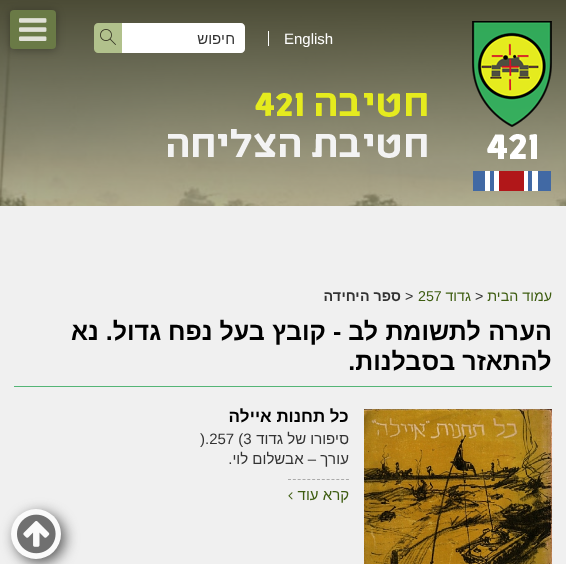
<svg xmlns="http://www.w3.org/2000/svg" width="566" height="564">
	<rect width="100%" height="100%" fill="#F0F0F0" />
	<image x="0" y="0" width="566" height="206" href="assets/img1.png" />
	<image x="472" y="21" width="80" height="170" href="assets/img2.png" />
	<rect x="268" y="31" width="1" height="15" fill="#FFFFFF" />
	<text x="284" y="44" font-family="Arimo" font-size="15" fill="#FFFFFF">English</text>
	<path d="M122 23H241C243 23 245 25 245 27V49C245 51 243 53 241 53H122Z" fill="#FFFFFF" />
	<text x="235" y="44" font-family="Arimo" font-size="15" direction="rtl" fill="#333333">חיפוש</text>
	<path d="M98 23H122V53H98C96 53 94 51 94 49V27C94 25 96 23 98 23Z" fill="#B1C18C" />
	<image x="100" y="29" width="16" height="16" href="assets/img3.png" />
	<image x="168" y="92" width="259" height="66" href="assets/img4.png" />
	<rect x="10" y="11" width="46" height="39" rx="4" fill="#000000" fill-opacity="0.3" filter="blur(4px)" />
	<rect x="10" y="10" width="46" height="39" rx="4" fill="#6A7A46" />
	<image x="19" y="18" width="28" height="23" href="assets/img5.png" />
	<text x="552" y="301" font-family="Arimo" font-size="14.25" direction="rtl" fill="#3E5D11">עמוד הבית</text>
	<text x="475" y="301" font-family="Arimo" font-size="14.25" fill="#333333">&gt;</text>
	<text x="471" y="301" font-family="Arimo" font-size="14.25" direction="rtl" fill="#3E5D11">גדוד</text>
	<text x="418" y="301" font-family="Arimo" font-size="14.25" fill="#3E5D11">257</text>
	<text x="405" y="301" font-family="Arimo" font-size="14.25" fill="#333333">&gt;</text>
	<text x="401" y="301" font-family="Arimo" font-size="14.25" font-weight="700" direction="rtl" fill="#333333">ספר היחידה</text>
	<rect x="14" y="386" width="538" height="1" fill="#54B576" />
	<g font-family="Arimo" font-size="25" font-weight="700" direction="rtl" fill="#000000">
		<text x="552" y="340">הערה לתשומת לב - קובץ בעל נפח גדול. נא</text>
		<text x="552" y="370">להתאזר בסבלנות.</text>
	</g>
	<image x="364" y="409" width="188" height="155" href="assets/img6.png" />
	<text x="349" y="422" font-family="Arimo" font-size="17" font-weight="700" direction="rtl" fill="#000000">כל תחנות איילה</text>
	<text x="349" y="444" font-family="Arimo" font-size="15" direction="rtl" fill="#333333">סיפורו של גדוד</text>
	<text x="200" y="444" font-family="Arimo" font-size="15" fill="#333333">).257 (3</text>
	<text x="349" y="464" font-family="Arimo" font-size="15" direction="rtl" fill="#333333">עורך – אבשלום לוי.</text>
	<path d="M288 479.5H349" fill="none" stroke="#AAAAAA" stroke-dasharray="3 1.83" />
	<text x="349" y="500" font-family="Arimo" font-size="15" direction="rtl" fill="#3E5D11">קרא עוד</text>
	<image x="288" y="492" width="5" height="8" href="assets/img7.png" />
	<rect x="15" y="513" width="50" height="50" rx="25" fill="#484848" fill-opacity="0.9" filter="blur(7px)" />
	<circle cx="36" cy="534" r="25" fill="#FBFBFB" />
	<image x="17" y="514" width="39" height="40" href="assets/img8.png" />
</svg>
